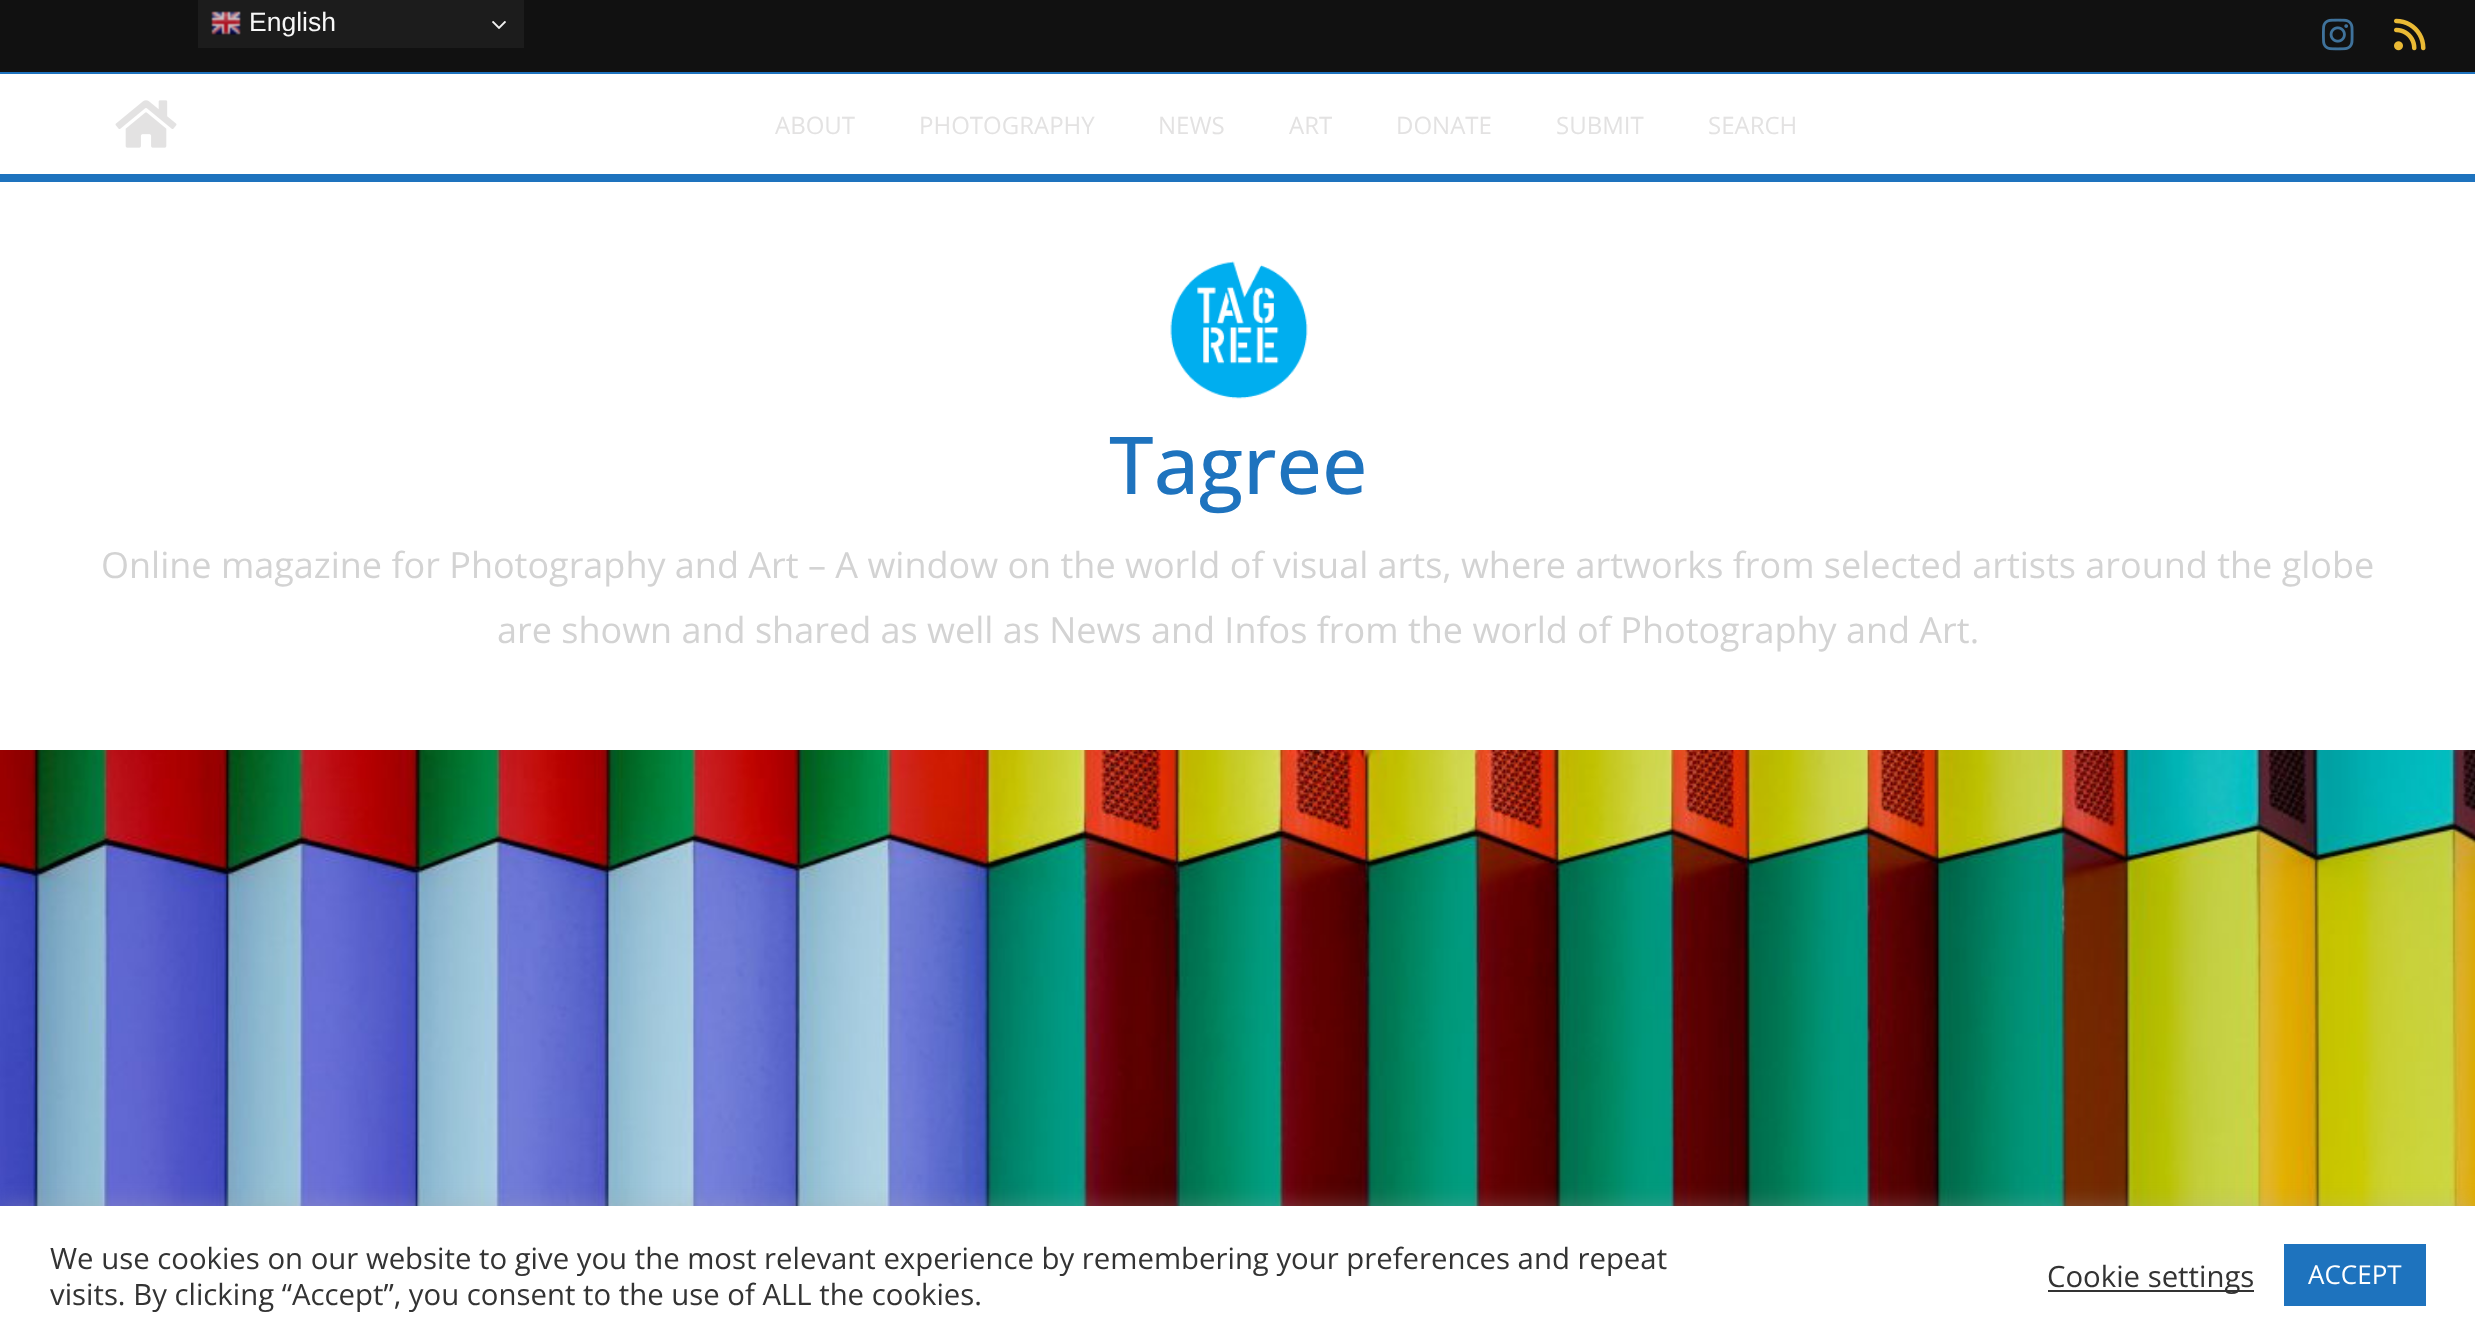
<svg xmlns="http://www.w3.org/2000/svg" width="2475" height="1343">
	<rect width="100%" height="100%" fill="#111111" />
	<rect x="198" y="0" width="326" height="48" fill="#1C1C1C" />
	<image x="211" y="11" width="30" height="24" href="assets/img1.png" />
	<text x="249" y="31" font-family="Liberation Sans" font-size="26.5" fill="#F7F7F7">English</text>
	<image x="492" y="21" width="14" height="8" href="assets/img2.png" />
	<rect x="0" y="72" width="2475" height="2" fill="#1E73BE" />
	<image x="2322" y="18" width="32" height="33" href="assets/img3.png" />
	<image x="2394" y="18" width="32" height="33" href="assets/img4.png" />
	<rect x="0" y="74" width="2475" height="676" fill="#FFFFFF" />
	<rect x="0" y="174" width="2475" height="8" fill="#1E73BE" />
	<image x="115" y="100" width="62" height="48" href="assets/img5.png" />
	<g font-family="Open Sans" font-size="24" fill="#E3E2E2">
		<text x="775" y="134">ABOUT</text>
		<text x="919" y="134">PHOTOGRAPHY</text>
		<text x="1158" y="134">NEWS</text>
		<text x="1289" y="134">ART</text>
		<text x="1396" y="134">DONATE</text>
		<text x="1556" y="134">SUBMIT</text>
		<text x="1708" y="134">SEARCH</text>
	</g>
	<image x="1170" y="261" width="138" height="138" href="assets/img6.png" />
	<text x="1109" y="494" font-family="Open Sans" font-size="80" font-weight="500" fill="#1E73BE">Tagree</text>
	<g font-family="Open Sans" font-size="36" fill="#D3D3D3">
		<text x="101" y="578">Online magazine for Photography and Art – A window on the world of visual arts, where artworks from selected artists around the globe</text>
		<text x="497" y="643">are shown and shared as well as News and Infos from the world of Photography and Art.</text>
	</g>
	<image x="0" y="750" width="2475" height="456" href="assets/img7.png" />
	<rect x="0" y="1204" width="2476" height="138" fill="#ACABAB" fill-opacity="0.3" filter="blur(10px)" />
	<rect x="0" y="1206" width="2475" height="137" fill="#FFFFFF" />
	<g font-family="Open Sans" font-size="29.33" fill="#333333">
		<text x="50" y="1269">We use cookies on our website to give you the most relevant experience by remembering your preferences and repeat</text>
		<text x="50" y="1305">visits. By clicking “Accept”, you consent to the use of ALL the cookies.</text>
	</g>
	<rect x="2048" y="1290" width="206" height="2" fill="#333333" />
	<text x="2047" y="1287" font-family="Open Sans" font-size="29.33" fill="#333333">Cookie settings</text>
	<rect x="2284" y="1244" width="142" height="62" fill="#1E73BE" />
	<text x="2308" y="1284" font-family="Open Sans" font-size="26" fill="#FFFFFF">ACCEPT</text>
</svg>
